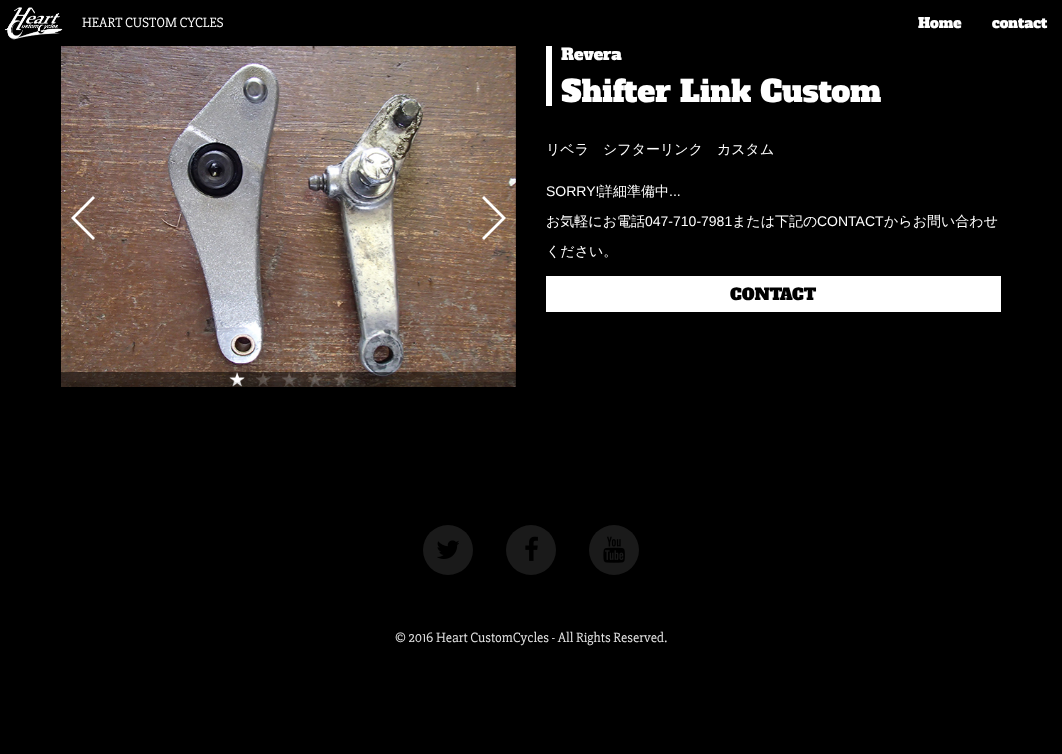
<svg xmlns="http://www.w3.org/2000/svg" width="1062" height="754">
	<rect width="100%" height="100%" fill="#000000" />
	<image x="4" y="7" width="59" height="33" href="assets/img1.png" />
	<text x="82" y="27" font-family="'Slabo 27px'" font-size="14" fill="#FFFFFF">HEART CUSTOM CYCLES</text>
	<g font-family="Alfa Slab One" font-size="14" fill="#FFFFFF">
		<text x="918" y="28">Home</text>
		<text x="992" y="28">contact</text>
	</g>
	<image x="61" y="46" width="455" height="341" href="assets/img2.png" />
	<path d="M71 218L93 196L95 198L75 218L95 238L93 240Z" fill="#FFFFFF" />
	<path d="M506 218L484 240L482 238L502 218L482 198L484 196Z" fill="#FFFFFF" />
	<rect x="61" y="372" width="455" height="15" fill="#000000" fill-opacity="0.5" />
	<image x="229" y="372" width="16" height="15" href="assets/img3.png" />
	<image x="256" y="372" width="15" height="14" href="assets/img4.png" />
	<image x="282" y="372" width="15" height="14" href="assets/img5.png" />
	<image x="308" y="372" width="15" height="14" href="assets/img6.png" />
	<image x="334" y="372" width="15" height="14" href="assets/img7.png" />
	<rect x="66" y="382" width="445" height="5" rx="2.5" fill="#000000" fill-opacity="0.1" />
	<rect x="546" y="46" width="6" height="60" fill="#FFFFFF" />
	<text x="561" y="60" font-family="Alfa Slab One" font-size="16" fill="#FFFFFF">Revera</text>
	<text x="561" y="102" font-family="Alfa Slab One" font-size="30" fill="#FFFFFF">Shifter Link Custom</text>
	<text x="546" y="154" font-family="WenQuanYi Zen Hei" font-size="14" font-weight="500" fill="#FFFFFF">リベラ　シフターリンク　カスタム</text>
	<text x="546" y="196" font-family="Liberation Sans" font-size="14" fill="#FFFFFF">SORRY!</text>
	<text x="599" y="196" font-family="WenQuanYi Zen Hei" font-size="14" font-weight="500" fill="#FFFFFF">詳細準備中</text>
	<text x="669" y="196" font-family="Liberation Sans" font-size="14" fill="#FFFFFF">...</text>
	<text x="546" y="226" font-family="WenQuanYi Zen Hei" font-size="14" font-weight="500" fill="#FFFFFF">お気軽にお電話</text>
	<text x="645" y="226" font-family="Liberation Sans" font-size="14" fill="#FFFFFF">047-710-7981</text>
	<text x="732" y="226" font-family="WenQuanYi Zen Hei" font-size="14" font-weight="500" fill="#FFFFFF">または下記の</text>
	<text x="817" y="226" font-family="Liberation Sans" font-size="14" fill="#FFFFFF">CONTACT</text>
	<g font-family="WenQuanYi Zen Hei" font-size="14" font-weight="500" fill="#FFFFFF">
		<text x="884" y="226">からお問い合わせ</text>
		<text x="546" y="256">ください。</text>
	</g>
	<rect x="546" y="276" width="455" height="36" fill="#FFFFFF" />
	<text x="730" y="300" font-family="Alfa Slab One" font-size="16" fill="#000000">CONTACT</text>
	<circle cx="448" cy="550" r="25" fill="#1A1A1A" />
	<image x="437" y="540" width="22" height="19" href="assets/img8.png" />
	<circle cx="531" cy="550" r="25" fill="#1A1A1A" />
	<image x="525" y="536" width="13" height="25" href="assets/img9.png" />
	<circle cx="614" cy="550" r="25" fill="#1A1A1A" />
	<image x="603" y="536" width="22" height="27" href="assets/img10.png" />
	<text x="395" y="642" font-family="'Slabo 27px'" font-size="14" fill="#E3E3E3">© 2016 Heart CustomCycles - All Rights Reserved.</text>
</svg>
